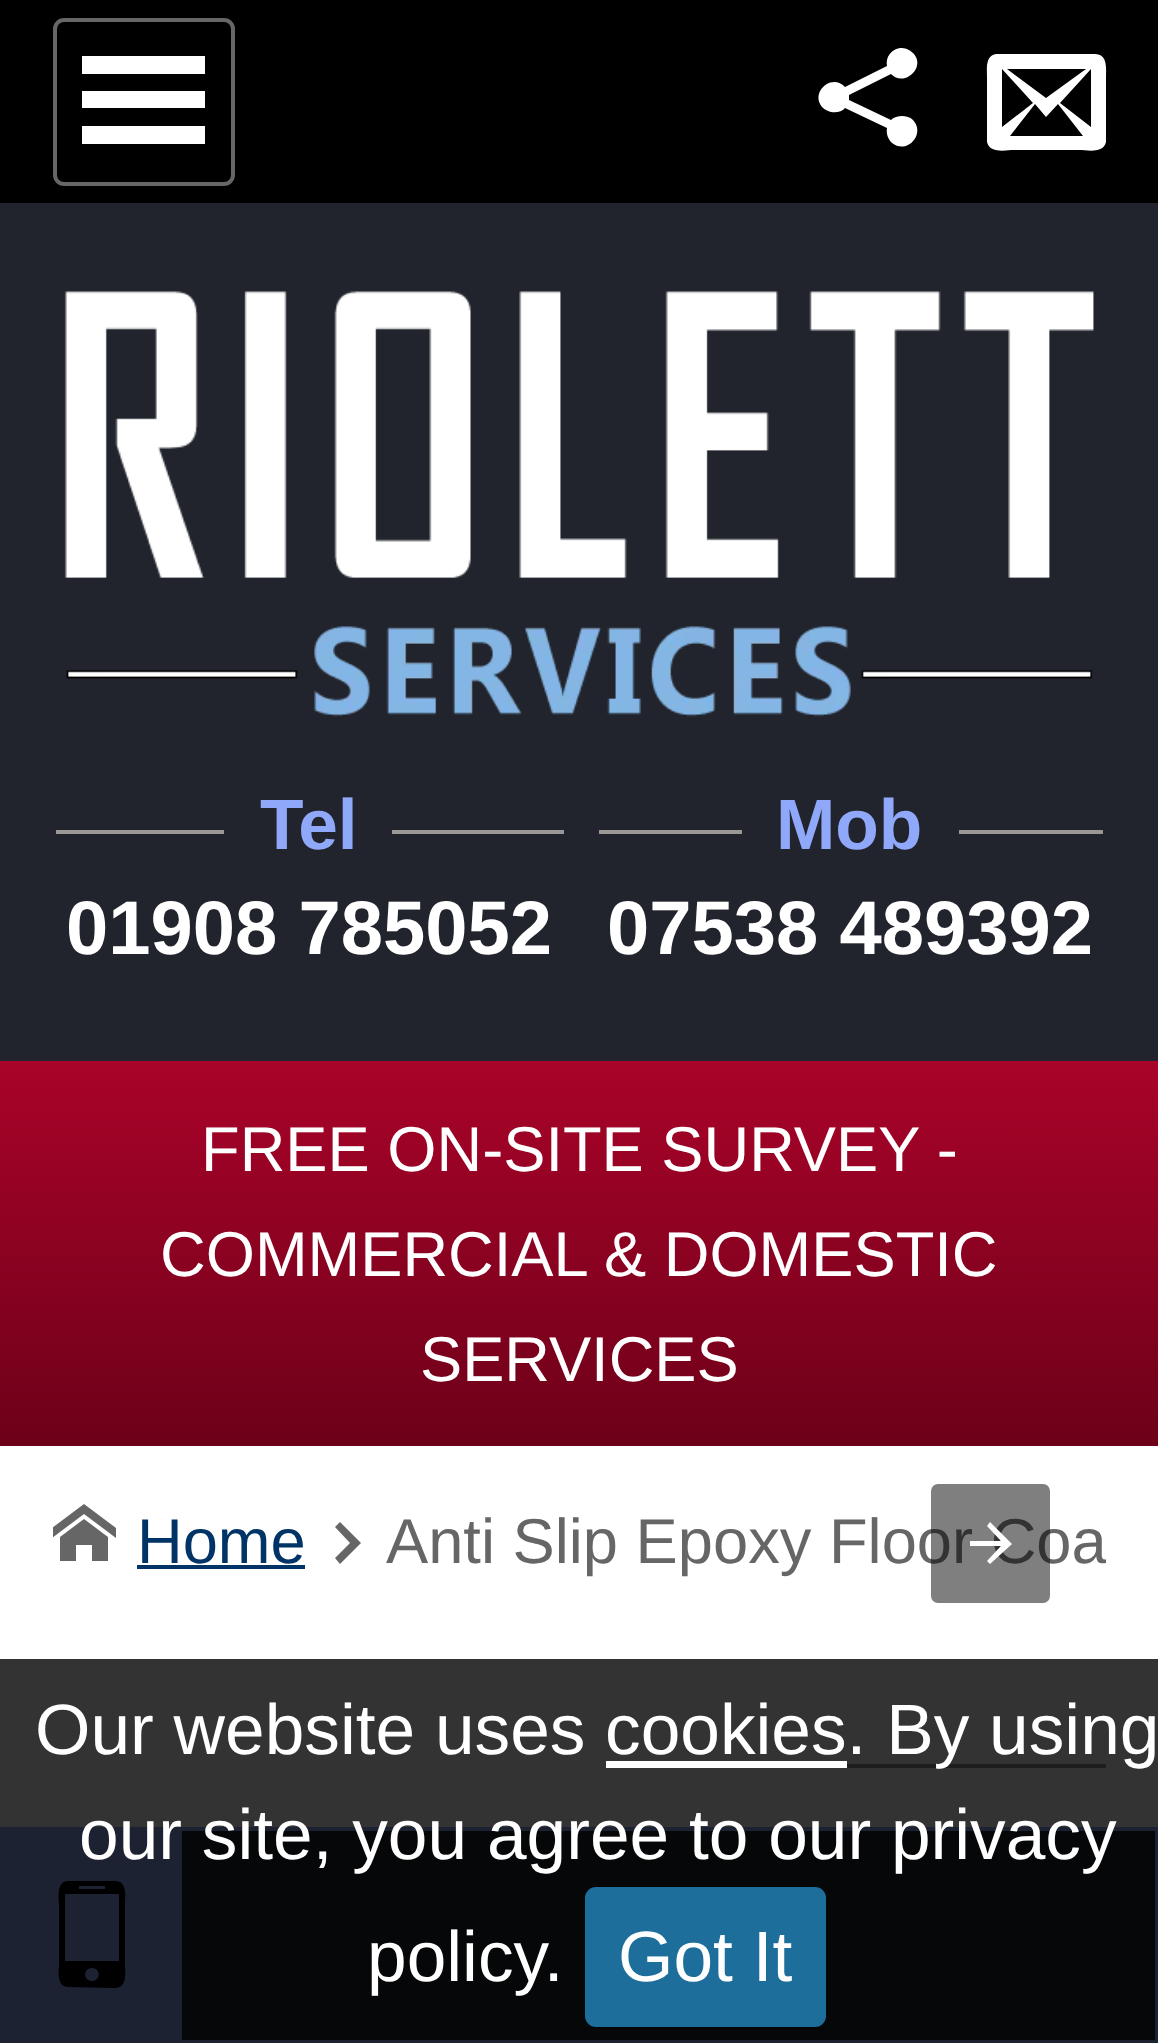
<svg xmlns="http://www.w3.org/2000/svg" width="1158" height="2043">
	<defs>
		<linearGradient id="g1" gradientUnits="userSpaceOnUse" x1="579" y1="1061" x2="579" y2="1446"><stop offset="0" stop-color="#A90329" /><stop offset="0.44" stop-color="#8F0222" /><stop offset="1" stop-color="#6D0019" /></linearGradient>
		<clipPath id="clip1"><rect x="53" y="1481" width="1053" height="115" /></clipPath>
	</defs>
	<rect width="100%" height="100%" fill="#FFFFFF" />
	<rect x="0" y="203" width="1158" height="858" fill="#21242C" />
	<rect x="0" y="0" width="1158" height="203" fill="#000000" />
	<rect x="55" y="20" width="178" height="164" rx="9" fill="none" stroke="#666666" stroke-width="4" />
	<path d="M82 56H205V74H82ZM82 91H205V108H82ZM82 126H205V144H82Z" fill="#FFFFFF" />
	<path d="M902 116C898 116 894 117 891 120L849 100V95L891 74C904 88 927 67 913 53C909 49 905 48 900 48C892 49 885 57 887 66L845 87C832 73 810 92 822 107C825 110 828 111 831 112C836 113 842 112 845 108L887 128C886 134 888 139 892 143C907 155 926 134 913 120C910 117 906 116 902 116Z" fill="#FFFFFF" />
	<path d="M1095 54H996C985 56 987 69 987 77V142C990 154 1006 150 1014 150H1079C1087 150 1103 154 1106 142V77C1106 69 1108 54 1095 54ZM1033 103L1002 127V69ZM1007 69H1086L1046 98ZM1035 104L1046 117L1058 104L1083 136H1010ZM1060 103L1091 69V127Z" fill="#FFFFFF" />
	<image x="64" y="291" width="1030" height="426" href="assets/img1.png" />
	<rect x="56" y="830" width="168" height="4" fill="#9B9797" />
	<text x="260" y="849" font-family="Liberation Sans" font-size="71.25" font-weight="700" fill="#90A8FA">Tel</text>
	<rect x="392" y="830" width="172" height="4" fill="#9B9797" />
	<text x="66" y="954" font-family="Liberation Sans" font-size="76" font-weight="700" fill="#FFFFFF">01908 785052</text>
	<rect x="599" y="830" width="143" height="4" fill="#9B9797" />
	<text x="776" y="849" font-family="Liberation Sans" font-size="71.25" font-weight="700" fill="#90A8FA">Mob</text>
	<rect x="959" y="830" width="144" height="4" fill="#9B9797" />
	<text x="607" y="954" font-family="Liberation Sans" font-size="76" font-weight="700" fill="#FFFFFF">07538 489392</text>
	<rect x="182" y="1831" width="973" height="209" fill="#21242C" />
	<rect x="2" y="1829" width="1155" height="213" fill="none" stroke="#90A8FA" stroke-width="4" />
	<rect x="4" y="1831" width="178" height="209" fill="#90A8FA" />
	<path d="M115 1881H67C56 1883 59 1898 59 1905V1963C59 1970 56 1985 67 1987L115 1988C128 1988 125 1971 125 1963V1905C125 1898 128 1881 115 1881ZM79 1886H105V1889H79ZM92 1981C83 1981 83 1968 92 1968C101 1968 101 1981 92 1981ZM119 1961H65V1894H119Z" fill="#000000" />
	<rect x="0" y="1061" width="1158" height="385" fill="url(#g1)" />
	<g font-family="Liberation Sans" font-size="63.25" fill="#FFFFFF">
		<text x="201" y="1171">FREE ON-SITE SURVEY -</text>
		<text x="160" y="1276">COMMERCIAL &amp; DOMESTIC</text>
		<text x="420" y="1381">SERVICES</text>
	</g>
	<g clip-path="url(#clip1)">
		<text x="386" y="1563" font-family="Liberation Sans" font-size="63.25" fill="#666666">Anti Slip Epoxy Floor Coa</text>
	</g>
	<rect x="931" y="1484" width="119" height="119" rx="7" fill="#000000" fill-opacity="0.5" />
	<path d="M990 1522L987 1526L1001 1541H970V1546H1001L987 1561L990 1564L1012 1544Z" fill="#FFFFFF" />
	<g clip-path="url(#clip1)">
		<path d="M116 1538L84 1514L52 1538V1528L84 1504L116 1528ZM108 1537V1561H92V1545H76V1561H60V1537L84 1519Z" fill="#666666" />
	</g>
	<text x="137" y="1563" font-family="Liberation Sans" font-size="63.25" fill="#003366">Home</text>
	<rect x="137" y="1565" width="168" height="4" fill="#003366" />
	<path d="M340 1522L335 1527L350 1543L335 1558L340 1564L361 1543Z" fill="#666666" />
	<rect x="847" y="1764" width="259" height="4" fill="#9B9797" />
	<rect x="0" y="1659" width="1158" height="384" fill="#000000" fill-opacity="0.8" />
	<text x="35" y="1754" font-family="Liberation Sans" font-size="71.25" fill="#FFFFFF">Our website uses</text>
	<rect x="606" y="1761" width="241" height="7" fill="#FFFFFF" />
	<g font-family="Liberation Sans" font-size="71.25" fill="#FFFFFF">
		<text x="605" y="1754">cookies. By using</text>
		<text x="79" y="1859">our site, you agree to our privacy</text>
		<text x="367" y="1981">policy.</text>
	</g>
	<rect x="585" y="1887" width="241" height="140" rx="11" fill="#1D6E9B" />
	<text x="618" y="1981" font-family="Liberation Sans" font-size="71.25" fill="#FFFFFF">Got It</text>
</svg>
